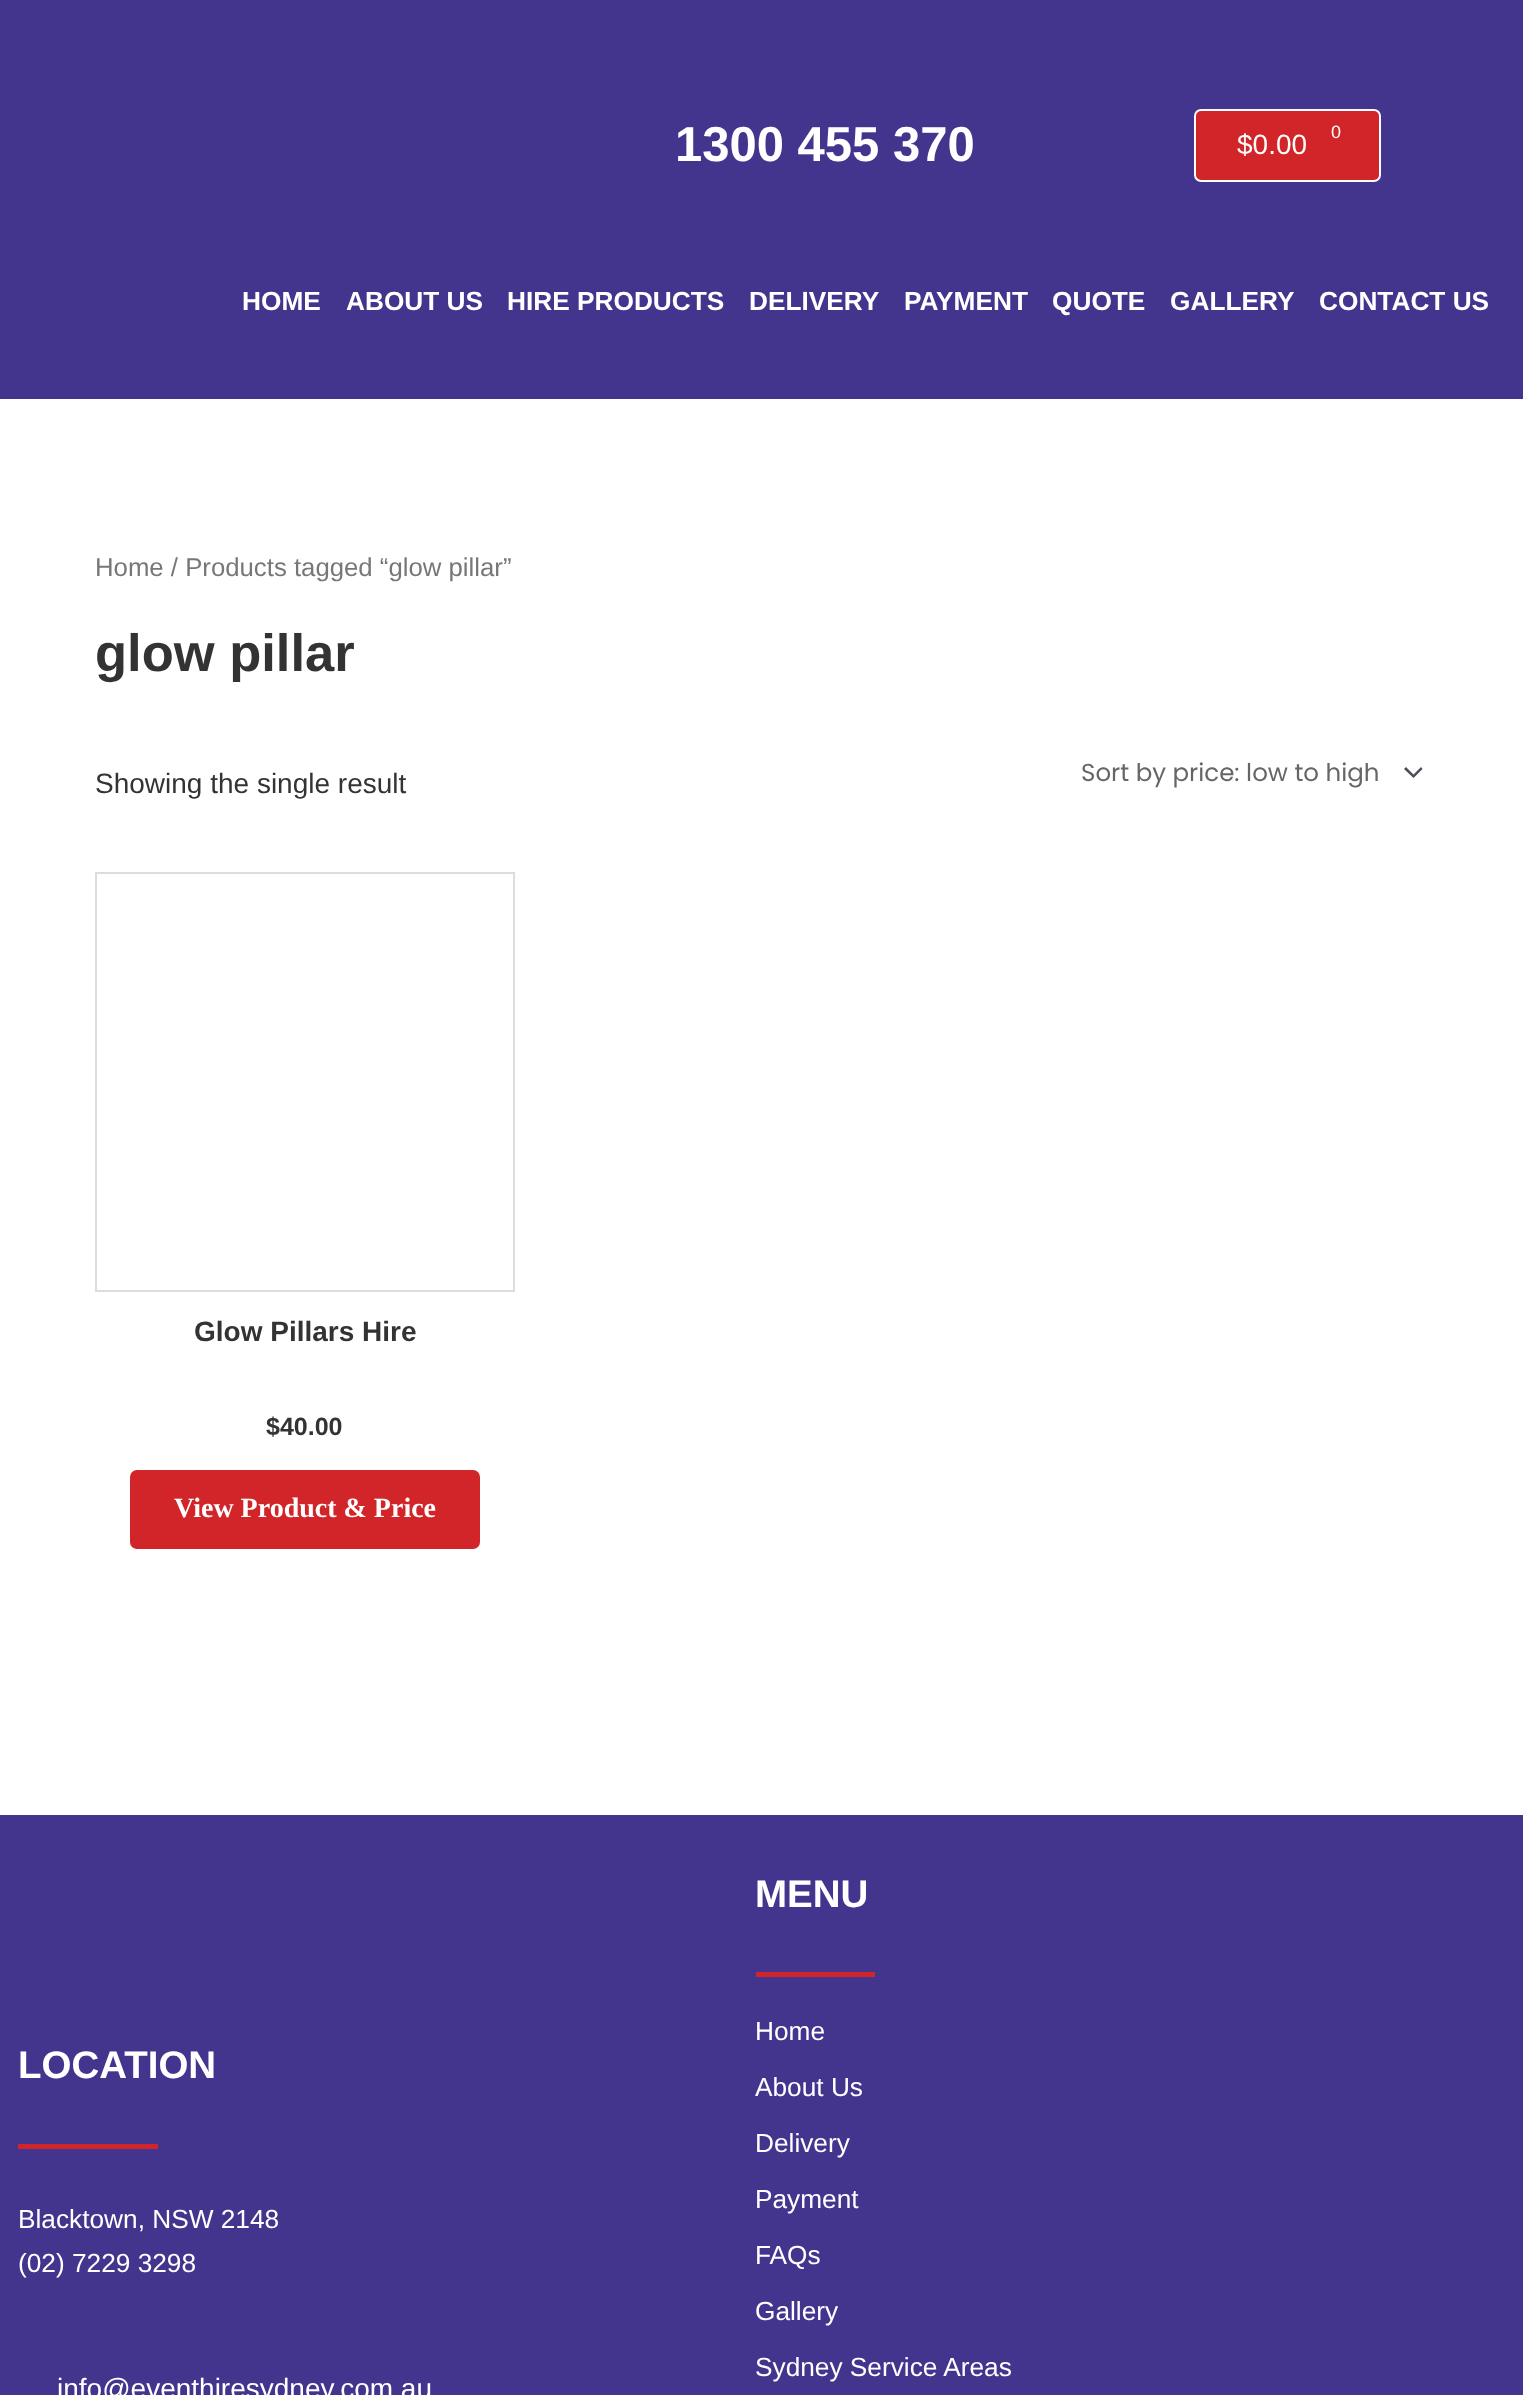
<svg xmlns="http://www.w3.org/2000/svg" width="1523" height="2395">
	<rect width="100%" height="100%" fill="#FFFFFF" />
	<rect x="0" y="0" width="1523" height="399" fill="#43358E" />
	<text x="675" y="161" font-family="Liberation Sans" font-size="49" font-weight="700" fill="#FFFFFF">1300 455 370</text>
	<rect x="1195" y="110" width="185" height="71" rx="6" fill="#D22529" stroke="#FFFFFF" stroke-width="2" />
	<text x="1237" y="154" font-family="Liberation Sans" font-size="28" fill="#FFFFFF">$0.00</text>
	<text x="1331" y="138" font-family="Liberation Sans" font-size="18" fill="#FFFFFF">0</text>
	<g font-family="Liberation Sans" font-size="26.25" font-weight="700" fill="#FFFFFF">
		<text x="242" y="310">HOME</text>
		<text x="346" y="310">ABOUT US</text>
		<text x="507" y="310">HIRE PRODUCTS</text>
		<text x="749" y="310">DELIVERY</text>
		<text x="904" y="310">PAYMENT</text>
		<text x="1052" y="310">QUOTE</text>
		<text x="1170" y="310">GALLERY</text>
		<text x="1319" y="310">CONTACT US</text>
	</g>
	<text x="95" y="576" font-family="Liberation Sans" font-size="25.75" fill="#777777">Home / Products tagged “glow pillar”</text>
	<text x="95" y="671" font-family="Liberation Sans" font-size="52.5" font-weight="700" fill="#333333">glow pillar</text>
	<text x="95" y="793" font-family="Liberation Sans" font-size="28" fill="#333333">Showing the single result</text>
	<path d="M1404 769L1413.5 778L1422.5 769L1421 767L1413.5 774.5L1406 767Z" fill="#4B4F58" />
	<text x="1081" y="781" font-family="Poppins" font-size="24.5" fill="#666666">Sort by price: low to high</text>
	<rect x="96" y="873" width="418" height="418" fill="none" stroke="#DDDDDB" stroke-width="2" />
	<text x="194" y="1341" font-family="Liberation Sans" font-size="28" font-weight="700" fill="#333333">Glow Pillars Hire</text>
	<text x="266" y="1435" font-family="Liberation Sans" font-size="25" font-weight="700" fill="#333333">$40.00</text>
	<rect x="130" y="1470" width="350" height="79" rx="7" fill="#D22529" />
	<text x="174" y="1517" font-family="Liberation Serif" font-size="28" font-weight="700" fill="#FFFFFF">View Product &amp; Price</text>
	<rect x="0" y="1815" width="1523" height="580" fill="#43358E" />
	<text x="18" y="2078" font-family="Liberation Sans" font-size="38.5" font-weight="700" fill="#FFFFFF">LOCATION</text>
	<rect x="18" y="2144" width="140" height="5" fill="#D22529" />
	<g font-family="Liberation Sans" font-size="26.25" fill="#FFFFFF">
		<text x="18" y="2228">Blacktown, NSW 2148</text>
		<text x="18" y="2272">(02) 7229 3298</text>
	</g>
	<text x="57" y="2398" font-family="Liberation Sans" font-size="28" fill="#FFFFFF">info@eventhiresydney.com.au</text>
	<text x="755" y="1907" font-family="Liberation Sans" font-size="38.5" font-weight="700" fill="#FFFFFF">MENU</text>
	<rect x="756" y="1972" width="119" height="5" fill="#D22529" />
	<g font-family="Liberation Sans" font-size="26.25" fill="#FFFFFF">
		<text x="755" y="2040">Home</text>
		<text x="755" y="2096">About Us</text>
		<text x="755" y="2152">Delivery</text>
		<text x="755" y="2208">Payment</text>
		<text x="755" y="2264">FAQs</text>
		<text x="755" y="2320">Gallery</text>
		<text x="755" y="2376">Sydney Service Areas</text>
	</g>
</svg>
